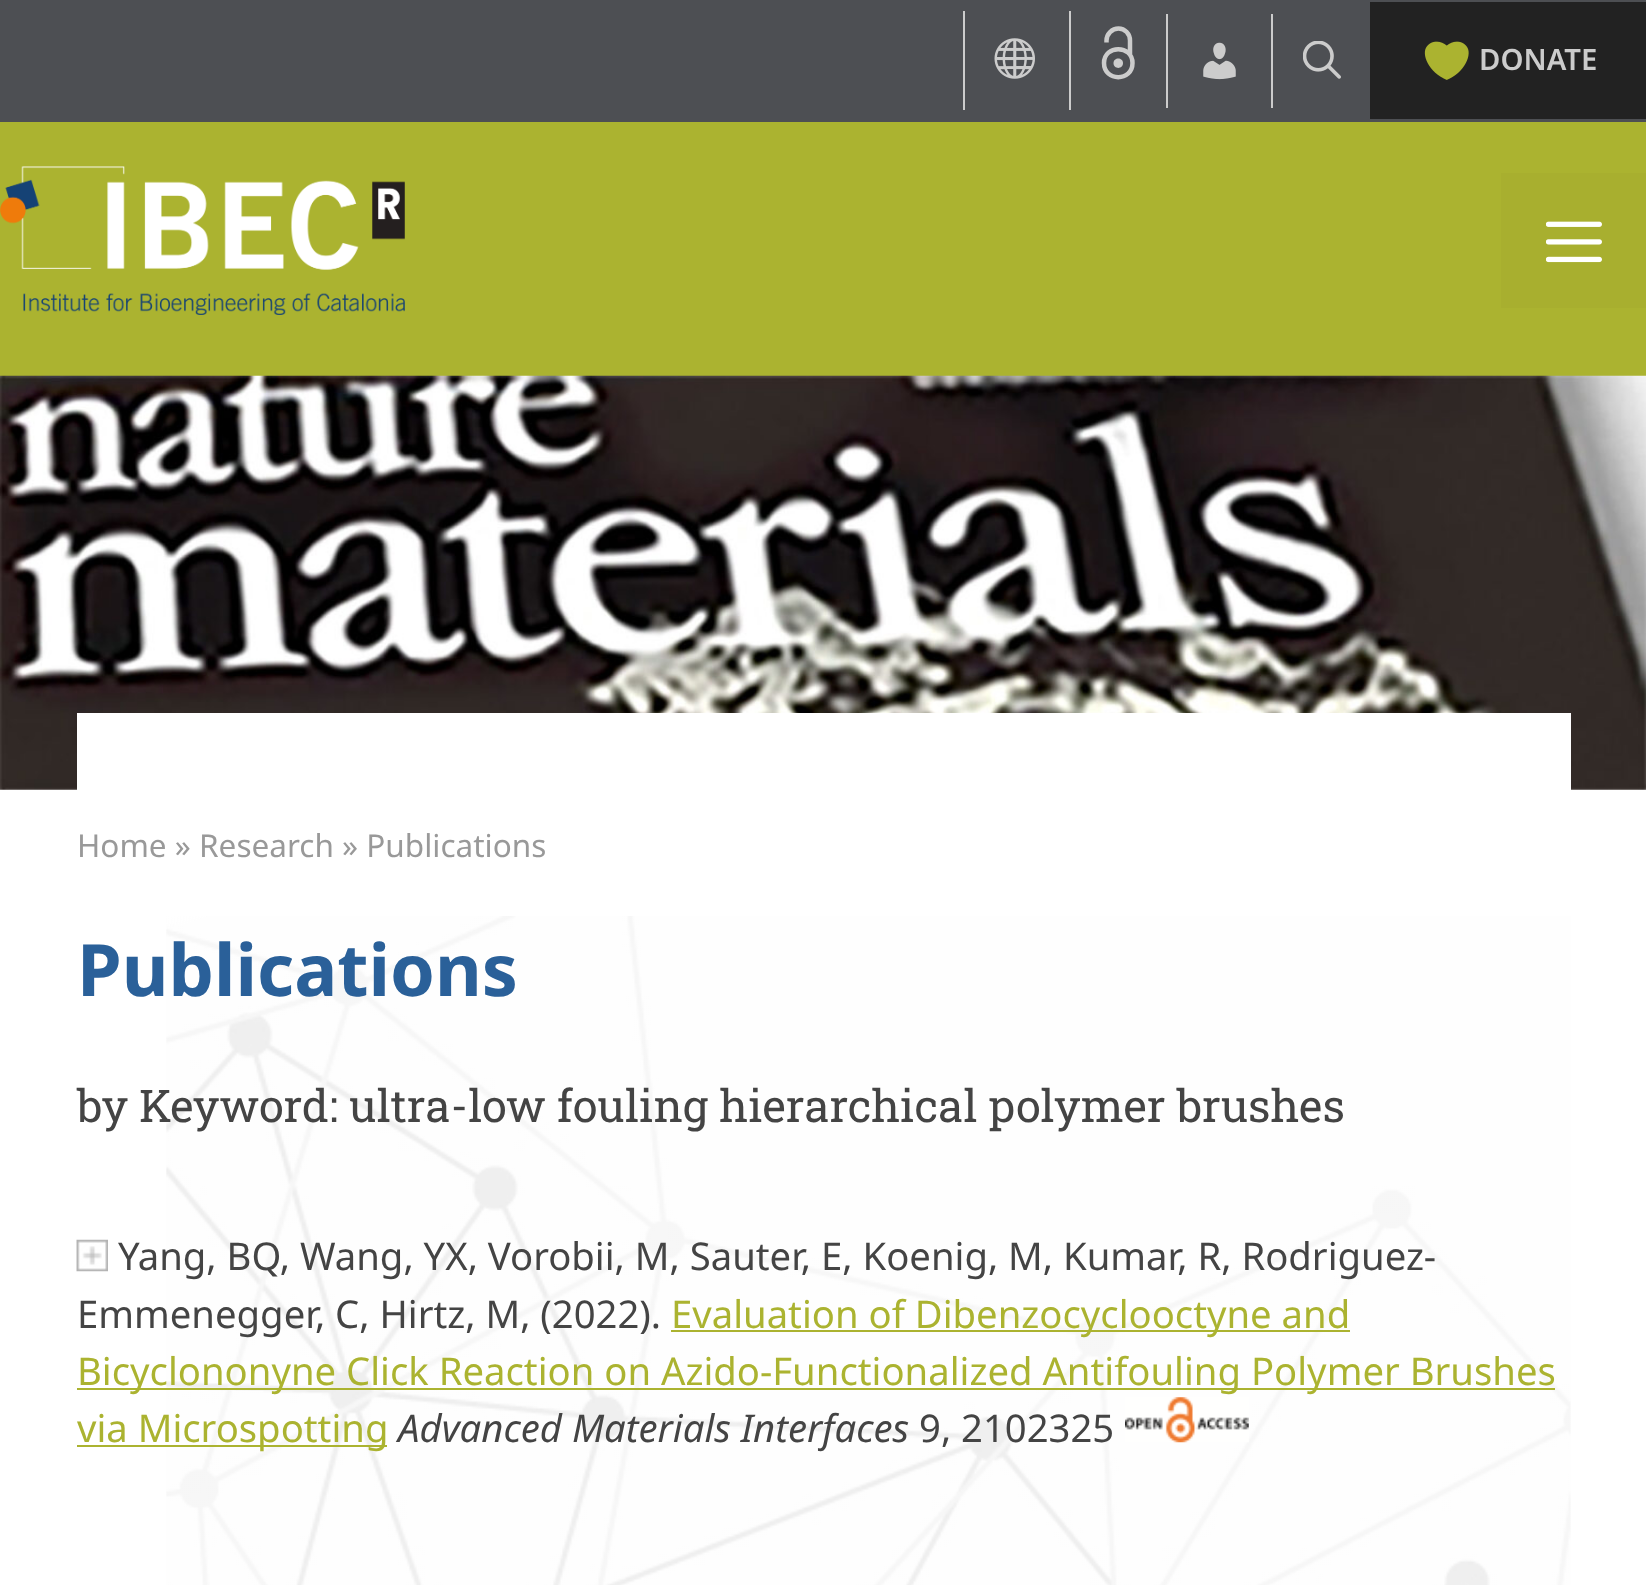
<svg xmlns="http://www.w3.org/2000/svg" width="1646" height="1585">
	<rect width="100%" height="100%" fill="#FFFFFF" />
	<rect x="0" y="0" width="1646" height="122" fill="#4D4F53" />
	<rect x="1069" y="11" width="2" height="99" fill="#CCCCCC" />
	<rect x="963" y="11" width="2" height="99" fill="#CCCCCC" />
	<image x="994" y="38" width="41" height="41" href="assets/img1.png" />
	<path d="M1106.5 42.5V40.5C1106.5 34 1112 28.5 1118.5 28.5C1125 28.5 1130 34 1130 40.5V55M1132.5 63C1132.5 82 1104 82 1104 63C1104 44.5 1132.5 44.5 1132.5 63Z" fill="none" stroke="#CCCCCC" stroke-width="4.5" />
	<path d="M1123 63C1123 69.5 1113.5 69.5 1113.5 63C1113.5 57 1123 57 1123 63Z" fill="#CCCCCC" />
	<rect x="1166" y="14" width="2" height="94" fill="#CCCCCC" />
	<image x="1203" y="42" width="33" height="38" href="assets/img2.png" />
	<rect x="1271" y="14" width="2" height="94" fill="#CCCCCC" />
	<image x="1303" y="41" width="38" height="38" href="assets/img3.png" />
	<rect x="1370" y="2" width="276" height="117" fill="#222222" />
	<image x="1424" y="41" width="45" height="39" href="assets/img4.png" />
	<text x="1479" y="70" font-family="Noto Sans" font-size="29.25" font-weight="600" fill="#CCCCCC">DONATE</text>
	<rect x="0" y="122" width="1646" height="254" fill="#ABB330" />
	<image x="0" y="166" width="405" height="149" href="assets/img5.png" />
	<rect x="1501" y="173" width="145" height="135" fill="#A8AF2F" />
	<image x="1546" y="221" width="56" height="42" href="assets/img6.png" />
	<image x="0" y="375" width="1646" height="415" href="assets/img7.png" />
	<rect x="77" y="713" width="1494" height="77" fill="#FFFFFF" />
	<image x="166" y="916" width="1405" height="669" href="assets/img8.png" />
	<text x="77" y="857" font-family="Noto Sans" font-size="31.5" fill="#999999">Home » Research » Publications</text>
	<text x="77" y="996" font-family="Noto Sans" font-size="72" font-weight="700" fill="#2A6099">Publications</text>
	<text x="77" y="1122" font-family="Roboto Slab" font-size="45" fill="#444444">by Keyword: ultra-low fouling hierarchical polymer brushes</text>
	<image x="76" y="1239" width="32" height="33" href="assets/img9.png" />
	<g font-family="Noto Sans" font-size="38.25" fill="#444444">
		<text x="118" y="1270">Yang, BQ, Wang, YX, Vorobii, M, Sauter, E, Koenig, M, Kumar, R, Rodriguez-</text>
		<text x="77" y="1328">Emmenegger, C, Hirtz, M, (2022).</text>
	</g>
	<rect x="671" y="1330" width="679" height="2" fill="#ABB330" />
	<text x="671" y="1328" font-family="Noto Sans" font-size="38.25" fill="#ABB330">Evaluation of Dibenzocyclooctyne and</text>
	<rect x="77" y="1388" width="1478" height="2" fill="#ABB330" />
	<text x="77" y="1385" font-family="Noto Sans" font-size="38.25" fill="#ABB330">Bicyclononyne Click Reaction on Azido-Functionalized Antifouling Polymer Brushes</text>
	<rect x="77" y="1445" width="310" height="2" fill="#ABB330" />
	<text x="77" y="1442" font-family="Noto Sans" font-size="38.25" fill="#ABB330">via Microspotting</text>
	<text x="398" y="1442" font-family="Noto Sans" font-size="38.25" font-style="italic" fill="#444444">Advanced Materials Interfaces</text>
	<text x="919" y="1442" font-family="Noto Sans" font-size="38.25" fill="#444444">9, 2102325</text>
	<image x="1125" y="1397" width="124" height="46" href="assets/img10.png" />
</svg>
